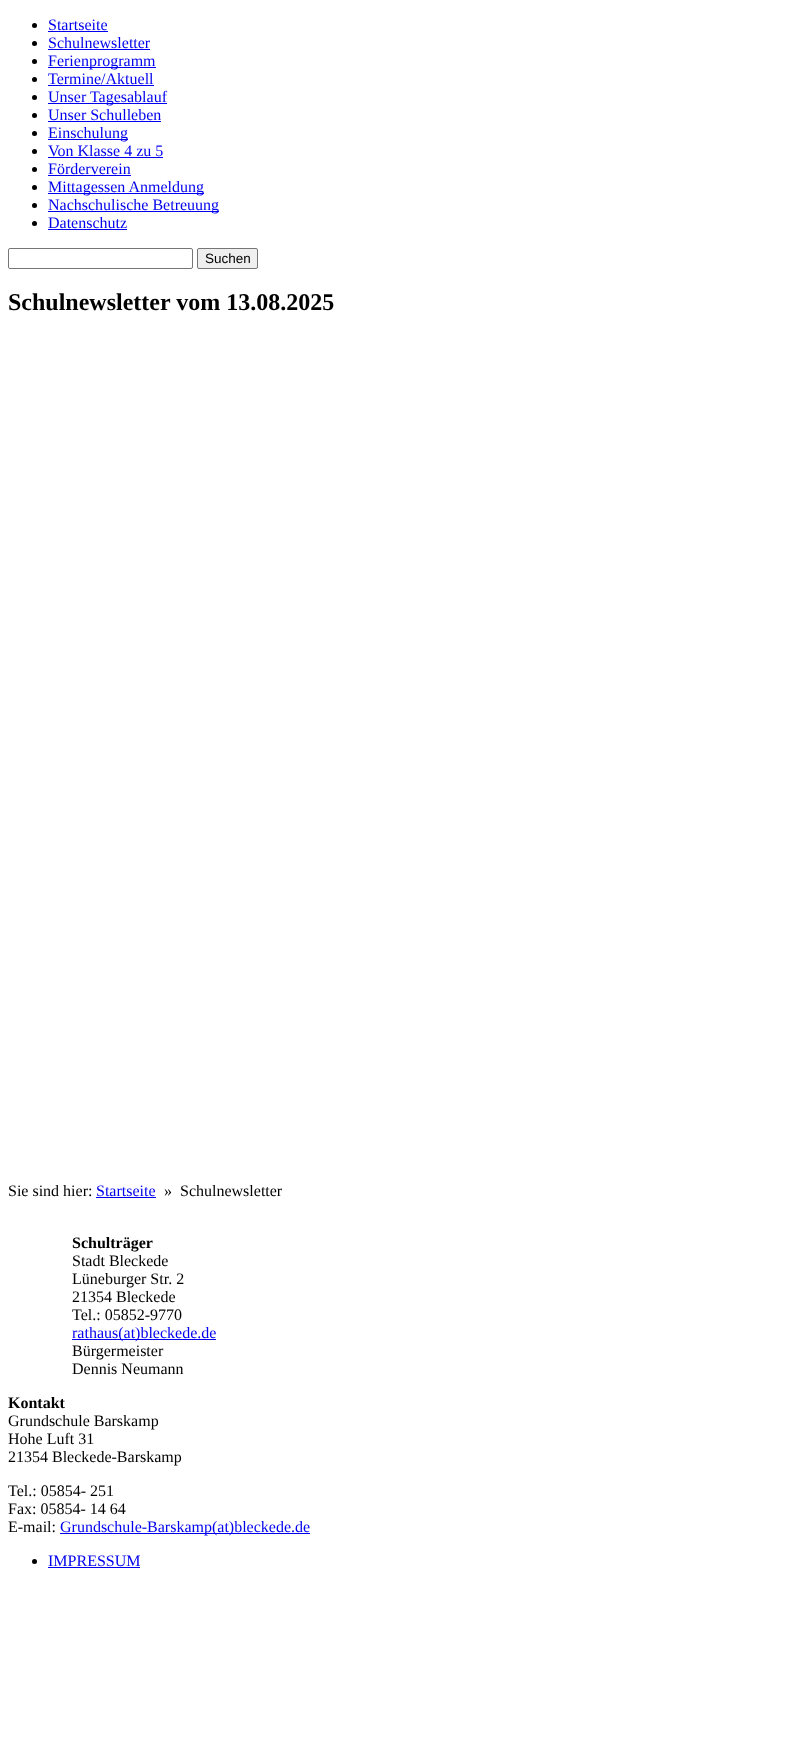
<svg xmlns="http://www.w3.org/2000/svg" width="794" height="1742">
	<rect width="100%" height="100%" fill="#FFFFFF" />
	<circle cx="34.5" cy="25.5" r="2.5" fill="#000000" />
	<text x="48" y="30" font-family="Liberation Serif" font-size="16" fill="#0000EE">Startseite</text>
	<rect x="48" y="31" width="60" height="1" fill="#0000EE" />
	<circle cx="34.5" cy="43.5" r="2.5" fill="#000000" />
	<text x="48" y="48" font-family="Liberation Serif" font-size="16" fill="#0000EE">Schulnewsletter</text>
	<rect x="48" y="49" width="102" height="1" fill="#0000EE" />
	<circle cx="34.5" cy="61.5" r="2.5" fill="#000000" />
	<rect x="48" y="67" width="108" height="1" fill="#0000EE" />
	<text x="48" y="66" font-family="Liberation Serif" font-size="16" fill="#0000EE">Ferienprogramm</text>
	<circle cx="34.5" cy="79.5" r="2.5" fill="#000000" />
	<text x="48" y="84" font-family="Liberation Serif" font-size="16" fill="#0000EE">Termine/Aktuell</text>
	<rect x="48" y="85" width="106" height="1" fill="#0000EE" />
	<circle cx="34.5" cy="97.5" r="2.5" fill="#000000" />
	<rect x="48" y="103" width="119" height="1" fill="#0000EE" />
	<text x="48" y="102" font-family="Liberation Serif" font-size="16" fill="#0000EE">Unser Tagesablauf</text>
	<circle cx="34.5" cy="115.5" r="2.5" fill="#000000" />
	<text x="48" y="120" font-family="Liberation Serif" font-size="16" fill="#0000EE">Unser Schulleben</text>
	<rect x="48" y="121" width="113" height="1" fill="#0000EE" />
	<circle cx="34.5" cy="133.5" r="2.5" fill="#000000" />
	<rect x="48" y="139" width="80" height="1" fill="#0000EE" />
	<text x="48" y="138" font-family="Liberation Serif" font-size="16" fill="#0000EE">Einschulung</text>
	<circle cx="34.5" cy="151.5" r="2.5" fill="#000000" />
	<text x="48" y="156" font-family="Liberation Serif" font-size="16" fill="#0000EE">Von Klasse 4 zu 5</text>
	<rect x="48" y="157" width="115" height="1" fill="#0000EE" />
	<circle cx="34.5" cy="169.5" r="2.5" fill="#000000" />
	<text x="48" y="174" font-family="Liberation Serif" font-size="16" fill="#0000EE">Förderverein</text>
	<rect x="48" y="175" width="83" height="1" fill="#0000EE" />
	<circle cx="34.5" cy="187.5" r="2.5" fill="#000000" />
	<rect x="48" y="193" width="156" height="1" fill="#0000EE" />
	<text x="48" y="192" font-family="Liberation Serif" font-size="16" fill="#0000EE">Mittagessen Anmeldung</text>
	<circle cx="34.5" cy="205.5" r="2.5" fill="#000000" />
	<rect x="48" y="211" width="171" height="1" fill="#0000EE" />
	<text x="48" y="210" font-family="Liberation Serif" font-size="16" fill="#0000EE">Nachschulische Betreuung</text>
	<circle cx="34.5" cy="223.5" r="2.5" fill="#000000" />
	<text x="48" y="228" font-family="Liberation Serif" font-size="16" fill="#0000EE">Datenschutz</text>
	<rect x="48" y="229" width="79" height="1" fill="#0000EE" />
	<rect x="8.5" y="248.5" width="184" height="20" rx="1.5" fill="none" stroke="#767676" />
	<rect x="197.5" y="248.5" width="60" height="20" rx="1.5" fill="#EFEFEF" stroke="#767676" />
	<text x="205" y="263" font-family="Liberation Sans" font-size="13.5" fill="#000000">Suchen</text>
	<text x="8" y="310" font-family="Liberation Serif" font-size="24" font-weight="700" fill="#000000">Schulnewsletter vom 13.08.2025</text>
	<text x="8" y="1196" font-family="Liberation Serif" font-size="16" fill="#000000">Sie sind hier:</text>
	<text x="96" y="1196" font-family="Liberation Serif" font-size="16" fill="#0000EE">Startseite</text>
	<rect x="96" y="1197" width="60" height="1" fill="#0000EE" />
	<text x="164" y="1196" font-family="Liberation Serif" font-size="16" fill="#000000" xml:space="preserve">»  Schulnewsletter</text>
	<text x="72" y="1248" font-family="Liberation Serif" font-size="16" font-weight="700" fill="#000000">Schulträger</text>
	<g font-family="Liberation Serif" font-size="16" fill="#000000">
		<text x="72" y="1266">Stadt Bleckede</text>
		<text x="72" y="1284">Lüneburger Str. 2</text>
		<text x="72" y="1302">21354 Bleckede</text>
		<text x="72" y="1320">Tel.: 05852-9770</text>
	</g>
	<rect x="72" y="1339" width="144" height="1" fill="#0000EE" />
	<text x="72" y="1338" font-family="Liberation Serif" font-size="16" fill="#0000EE">rathaus(at)bleckede.de</text>
	<g font-family="Liberation Serif" font-size="16" fill="#000000">
		<text x="72" y="1356">Bürgermeister</text>
		<text x="72" y="1374">Dennis Neumann</text>
	</g>
	<text x="8" y="1408" font-family="Liberation Serif" font-size="16" font-weight="700" fill="#000000">Kontakt</text>
	<g font-family="Liberation Serif" font-size="16" fill="#000000">
		<text x="8" y="1426">Grundschule Barskamp</text>
		<text x="8" y="1444">Hohe Luft 31</text>
		<text x="8" y="1462">21354 Bleckede-Barskamp</text>
		<text x="8" y="1496">Tel.: 05854- 251</text>
		<text x="8" y="1514">Fax: 05854- 14 64</text>
		<text x="8" y="1532">E-mail:</text>
	</g>
	<rect x="60" y="1533" width="250" height="1" fill="#0000EE" />
	<text x="60" y="1532" font-family="Liberation Serif" font-size="16" fill="#0000EE">Grundschule-Barskamp(at)bleckede.de</text>
	<circle cx="34.5" cy="1561.5" r="2.5" fill="#000000" />
	<text x="48" y="1566" font-family="Liberation Serif" font-size="16" fill="#0000EE">IMPRESSUM</text>
	<rect x="48" y="1567" width="92" height="1" fill="#0000EE" />
</svg>
